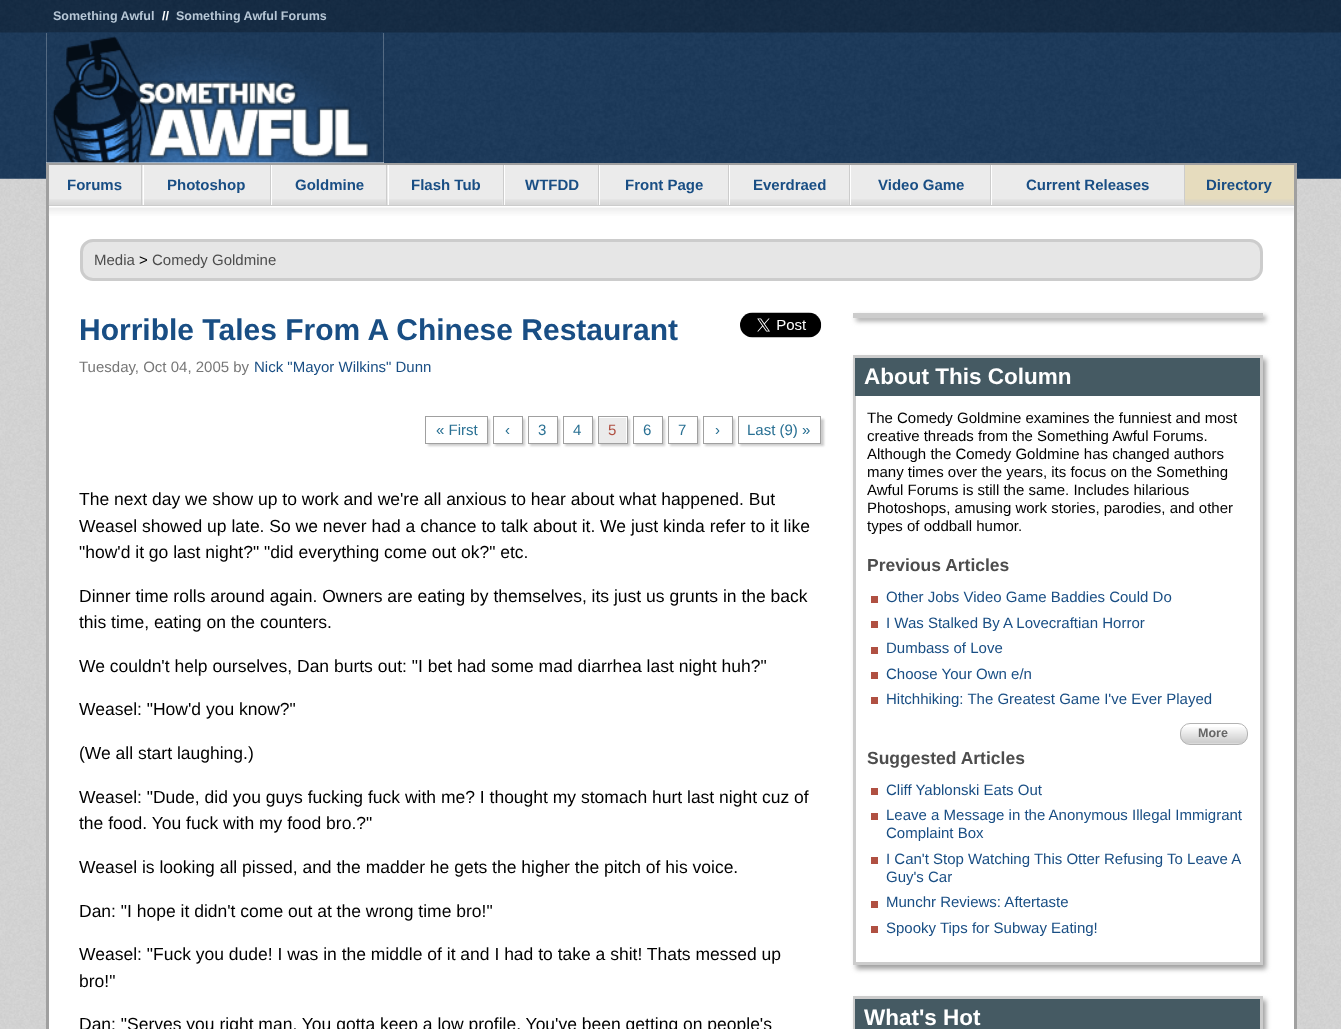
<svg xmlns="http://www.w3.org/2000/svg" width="1341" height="1029">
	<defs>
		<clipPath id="clip1"><path d="M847 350H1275V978H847ZM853 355H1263V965H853Z" clip-rule="evenodd" /></clipPath>
	</defs>
	<rect width="100%" height="100%" fill="#FFFFFF" />
	<image x="0" y="178" width="1341" height="851" href="assets/img1.png" />
	<image x="0" y="0" width="1341" height="179" href="assets/img2.png" />
	<text x="53" y="20" font-family="Liberation Sans" font-size="12.5" font-weight="700" fill="#B7C7D6">Something Awful</text>
	<text x="162" y="20" font-family="Liberation Sans" font-size="12.5" font-weight="700" fill="#FFFFFF">//</text>
	<text x="176" y="20" font-family="Liberation Sans" font-size="12.5" font-weight="700" fill="#B7C7D6">Something Awful Forums</text>
	<rect x="46" y="33" width="338" height="130" fill="#FFFFFF" />
	<image x="46" y="32" width="338" height="131" href="assets/img3.png" />
	<rect x="49" y="206" width="1245" height="823" fill="#FFFFFF" />
	<rect x="46" y="163" width="1250" height="2" fill="#A0A0A0" />
	<rect x="1294" y="163" width="3" height="866" fill="#A0A0A0" />
	<rect x="46" y="163" width="3" height="866" fill="#A0A0A0" />
	<rect x="49" y="165" width="1135" height="40" fill="#EBEBEB" />
	<rect x="49" y="205" width="1245" height="1" fill="#CCCCCC" />
	<image x="48" y="199" width="93" height="6" href="assets/img4.png" />
	<text x="67" y="190" font-family="Liberation Sans" font-size="15" font-weight="700" fill="#194E84">Forums</text>
	<rect x="141" y="165" width="1" height="40" fill="#CCCCCC" />
	<image x="142" y="199" width="128" height="6" href="assets/img5.png" />
	<rect x="143" y="165" width="1" height="40" fill="#FFFFFF" />
	<text x="167" y="190" font-family="Liberation Sans" font-size="15" font-weight="700" fill="#194E84">Photoshop</text>
	<rect x="270" y="165" width="1" height="40" fill="#CCCCCC" />
	<image x="272" y="199" width="114" height="6" href="assets/img6.png" />
	<rect x="271" y="165" width="1" height="40" fill="#FFFFFF" />
	<text x="295" y="190" font-family="Liberation Sans" font-size="15" font-weight="700" fill="#194E84">Goldmine</text>
	<rect x="386" y="165" width="1" height="40" fill="#CCCCCC" />
	<image x="387" y="199" width="116" height="6" href="assets/img7.png" />
	<rect x="388" y="165" width="1" height="40" fill="#FFFFFF" />
	<text x="411" y="190" font-family="Liberation Sans" font-size="15" font-weight="700" fill="#194E84">Flash Tub</text>
	<rect x="503" y="165" width="1" height="40" fill="#CCCCCC" />
	<image x="505" y="199" width="93" height="6" href="assets/img8.png" />
	<rect x="504" y="165" width="1" height="40" fill="#FFFFFF" />
	<text x="525" y="190" font-family="Liberation Sans" font-size="15" font-weight="700" fill="#194E84">WTFDD</text>
	<rect x="598" y="165" width="1" height="40" fill="#CCCCCC" />
	<image x="600" y="199" width="128" height="6" href="assets/img9.png" />
	<rect x="599" y="165" width="1" height="40" fill="#FFFFFF" />
	<text x="625" y="190" font-family="Liberation Sans" font-size="15" font-weight="700" fill="#194E84">Front Page</text>
	<rect x="728" y="165" width="1" height="40" fill="#CCCCCC" />
	<image x="730" y="199" width="119" height="6" href="assets/img10.png" />
	<rect x="729" y="165" width="1" height="40" fill="#FFFFFF" />
	<text x="753" y="190" font-family="Liberation Sans" font-size="15" font-weight="700" fill="#194E84">Everdraed</text>
	<rect x="849" y="165" width="1" height="40" fill="#CCCCCC" />
	<image x="851" y="199" width="139" height="6" href="assets/img11.png" />
	<rect x="850" y="165" width="1" height="40" fill="#FFFFFF" />
	<text x="878" y="190" font-family="Liberation Sans" font-size="15" font-weight="700" fill="#194E84">Video Game</text>
	<rect x="990" y="165" width="1" height="40" fill="#CCCCCC" />
	<image x="992" y="199" width="192" height="6" href="assets/img12.png" />
	<rect x="991" y="165" width="1" height="40" fill="#FFFFFF" />
	<text x="1026" y="190" font-family="Liberation Sans" font-size="15" font-weight="700" fill="#194E84">Current Releases</text>
	<rect x="1185" y="165" width="109" height="40" fill="#E6DCBE" />
	<rect x="1184" y="165" width="1" height="40" fill="#CCCCCC" />
	<image x="1185" y="199" width="109" height="6" href="assets/img13.png" />
	<text x="1206" y="190" font-family="Liberation Sans" font-size="15" font-weight="700" fill="#194E84">Directory</text>
	<image x="48" y="207" width="1246" height="9" href="assets/img14.png" />
	<rect x="81.5" y="240.5" width="1180" height="39" rx="11.5" fill="#E6E6E6" stroke="#CCCCCC" stroke-width="3" />
	<text x="94" y="265" font-family="Liberation Sans" font-size="15" fill="#4D4D4D">Media</text>
	<text x="139" y="265" font-family="Liberation Sans" font-size="15" fill="#000000">&gt;</text>
	<text x="152" y="265" font-family="Liberation Sans" font-size="15" fill="#4D4D4D">Comedy Goldmine</text>
	<text x="79" y="340" font-family="Liberation Sans" font-size="30" font-weight="700" fill="#194E84">Horrible Tales From A Chinese Restaurant</text>
	<text x="79" y="372" font-family="Liberation Sans" font-size="15" fill="#777777">Tuesday, Oct 04, 2005 by</text>
	<text x="254" y="372" font-family="Liberation Sans" font-size="15" fill="#194E84">Nick "Mayor Wilkins" Dunn</text>
	<image x="740" y="312" width="82" height="26" href="assets/img15.png" />
	<rect x="428" y="419" width="62" height="27" fill="#CCCCCC" filter="blur(1px)" />
	<rect x="425.5" y="416.5" width="62" height="27" fill="#FFFFFF" stroke="#A0A0A0" />
	<text x="436" y="435" font-family="Liberation Sans" font-size="15" fill="#297093">« First</text>
	<rect x="495" y="419" width="30" height="27" fill="#CCCCCC" filter="blur(1px)" />
	<rect x="493.5" y="416.5" width="29" height="27" fill="#FFFFFF" stroke="#A0A0A0" />
	<text x="505" y="435" font-family="Liberation Sans" font-size="15" fill="#297093">‹</text>
	<rect x="530" y="419" width="30" height="27" fill="#CCCCCC" filter="blur(1px)" />
	<rect x="528.5" y="416.5" width="29" height="27" fill="#FFFFFF" stroke="#A0A0A0" />
	<text x="538" y="435" font-family="Liberation Sans" font-size="15" fill="#297093">3</text>
	<rect x="565" y="419" width="30" height="27" fill="#CCCCCC" filter="blur(1px)" />
	<rect x="563.5" y="416.5" width="29" height="27" fill="#FFFFFF" stroke="#A0A0A0" />
	<text x="573" y="435" font-family="Liberation Sans" font-size="15" fill="#297093">4</text>
	<rect x="600" y="419" width="30" height="27" fill="#CCCCCC" filter="blur(1px)" />
	<rect x="598.5" y="416.5" width="29" height="27" fill="#FFFFFF" stroke="#A0A0A0" />
	<rect x="599" y="418" width="27" height="25" fill="#EBEBEB" />
	<text x="608" y="435" font-family="Liberation Sans" font-size="15" fill="#B05042">5</text>
	<rect x="635" y="419" width="30" height="27" fill="#CCCCCC" filter="blur(1px)" />
	<rect x="633.5" y="416.5" width="29" height="27" fill="#FFFFFF" stroke="#A0A0A0" />
	<text x="643" y="435" font-family="Liberation Sans" font-size="15" fill="#297093">6</text>
	<rect x="670" y="419" width="30" height="27" fill="#CCCCCC" filter="blur(1px)" />
	<rect x="668.5" y="416.5" width="29" height="27" fill="#FFFFFF" stroke="#A0A0A0" />
	<text x="678" y="435" font-family="Liberation Sans" font-size="15" fill="#297093">7</text>
	<rect x="705" y="419" width="30" height="27" fill="#CCCCCC" filter="blur(1px)" />
	<rect x="703.5" y="416.5" width="29" height="27" fill="#FFFFFF" stroke="#A0A0A0" />
	<text x="715" y="435" font-family="Liberation Sans" font-size="15" fill="#297093">›</text>
	<rect x="740" y="419" width="84" height="27" fill="#CCCCCC" filter="blur(1px)" />
	<rect x="738.5" y="416.5" width="82" height="27" fill="#FFFFFF" stroke="#A0A0A0" />
	<text x="747" y="435" font-family="Liberation Sans" font-size="15" fill="#297093">Last (9) »</text>
	<g font-family="Liberation Sans" font-size="17.5" fill="#000000">
		<text x="79" y="505">The next day we show up to work and we're all anxious to hear about what happened. But</text>
		<text x="79" y="532">Weasel showed up late. So we never had a chance to talk about it. We just kinda refer to it like</text>
		<text x="79" y="558">"how'd it go last night?" "did everything come out ok?" etc.</text>
		<text x="79" y="602">Dinner time rolls around again. Owners are eating by themselves, its just us grunts in the back</text>
		<text x="79" y="628">this time, eating on the counters.</text>
		<text x="79" y="672">We couldn't help ourselves, Dan burts out: "I bet had some mad diarrhea last night huh?"</text>
		<text x="79" y="715">Weasel: "How'd you know?"</text>
		<text x="79" y="759">(We all start laughing.)</text>
		<text x="79" y="803">Weasel: "Dude, did you guys fucking fuck with me? I thought my stomach hurt last night cuz of</text>
		<text x="79" y="829">the food. You fuck with my food bro.?"</text>
		<text x="79" y="873">Weasel is looking all pissed, and the madder he gets the higher the pitch of his voice.</text>
		<text x="79" y="917">Dan: "I hope it didn't come out at the wrong time bro!"</text>
		<text x="79" y="960">Weasel: "Fuck you dude! I was in the middle of it and I had to take a shit! Thats messed up</text>
		<text x="79" y="987">bro!"</text>
		<text x="79" y="1030">Dan: "Serves you right man. You gotta keep a low profile. You've been getting on people's</text>
	</g>
	<rect x="856" y="316" width="410" height="5" fill="#A0A0A0" filter="blur(2.5px)" />
	<rect x="853" y="313" width="410" height="5" fill="#CCCCCC" />
	<g clip-path="url(#clip1)">
		<rect x="856" y="359" width="410" height="610" fill="#A0A0A0" filter="blur(2.5px)" />
	</g>
	<rect x="854.5" y="356.5" width="407" height="607" fill="none" stroke="#CCCCCC" stroke-width="3" />
	<rect x="855" y="358" width="405" height="38" fill="#455A63" />
	<text x="864" y="384" font-family="Liberation Sans" font-size="22.5" font-weight="700" fill="#FFFFFF">About This Column</text>
	<g font-family="Liberation Sans" font-size="15" fill="#000000">
		<text x="867" y="423">The Comedy Goldmine examines the funniest and most</text>
		<text x="867" y="441">creative threads from the Something Awful Forums.</text>
		<text x="867" y="459">Although the Comedy Goldmine has changed authors</text>
		<text x="867" y="477">many times over the years, its focus on the Something</text>
		<text x="867" y="495">Awful Forums is still the same. Includes hilarious</text>
		<text x="867" y="513">Photoshops, amusing work stories, parodies, and other</text>
		<text x="867" y="531">types of oddball humor.</text>
	</g>
	<text x="867" y="571" font-family="Liberation Sans" font-size="17.5" font-weight="700" fill="#4D4D4D">Previous Articles</text>
	<rect x="871" y="596" width="7" height="7" fill="#B05042" />
	<text x="886" y="602" font-family="Liberation Sans" font-size="15" fill="#194E84">Other Jobs Video Game Baddies Could Do</text>
	<rect x="871" y="621" width="7" height="7" fill="#B05042" />
	<text x="886" y="628" font-family="Liberation Sans" font-size="15" fill="#194E84">I Was Stalked By A Lovecraftian Horror</text>
	<rect x="871" y="647" width="7" height="7" fill="#B05042" />
	<text x="886" y="653" font-family="Liberation Sans" font-size="15" fill="#194E84">Dumbass of Love</text>
	<rect x="871" y="672" width="7" height="7" fill="#B05042" />
	<text x="886" y="679" font-family="Liberation Sans" font-size="15" fill="#194E84">Choose Your Own e/n</text>
	<rect x="871" y="697" width="7" height="7" fill="#B05042" />
	<text x="886" y="704" font-family="Liberation Sans" font-size="15" fill="#194E84">Hitchhiking: The Greatest Game I've Ever Played</text>
	<image x="1180" y="727" width="68" height="17" href="assets/img16.png" />
	<rect x="1180.5" y="723.5" width="67" height="21" rx="9.5" fill="none" stroke="#B3B3B3" />
	<text x="1198" y="737" font-family="Liberation Sans" font-size="12.5" font-weight="700" fill="#666666">More</text>
	<text x="867" y="764" font-family="Liberation Sans" font-size="17.5" font-weight="700" fill="#4D4D4D">Suggested Articles</text>
	<rect x="871" y="788" width="7" height="7" fill="#B05042" />
	<text x="886" y="795" font-family="Liberation Sans" font-size="15" fill="#194E84">Cliff Yablonski Eats Out</text>
	<rect x="871" y="813" width="7" height="7" fill="#B05042" />
	<g font-family="Liberation Sans" font-size="15" fill="#194E84">
		<text x="886" y="820">Leave a Message in the Anonymous Illegal Immigrant</text>
		<text x="886" y="838">Complaint Box</text>
	</g>
	<rect x="871" y="857" width="7" height="7" fill="#B05042" />
	<g font-family="Liberation Sans" font-size="15" fill="#194E84">
		<text x="886" y="864">I Can't Stop Watching This Otter Refusing To Leave A</text>
		<text x="886" y="882">Guy's Car</text>
	</g>
	<rect x="871" y="901" width="7" height="7" fill="#B05042" />
	<text x="886" y="907" font-family="Liberation Sans" font-size="15" fill="#194E84">Munchr Reviews: Aftertaste</text>
	<rect x="871" y="926" width="7" height="7" fill="#B05042" />
	<text x="886" y="933" font-family="Liberation Sans" font-size="15" fill="#194E84">Spooky Tips for Subway Eating!</text>
	<rect x="856" y="1000" width="410" height="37" fill="#A0A0A0" filter="blur(2.5px)" />
	<rect x="854.5" y="997.5" width="407" height="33" fill="none" stroke="#CCCCCC" stroke-width="3" />
	<rect x="855" y="999" width="405" height="30" fill="#455A63" />
	<text x="864" y="1025" font-family="Liberation Sans" font-size="22.5" font-weight="700" fill="#FFFFFF">What's Hot</text>
</svg>
